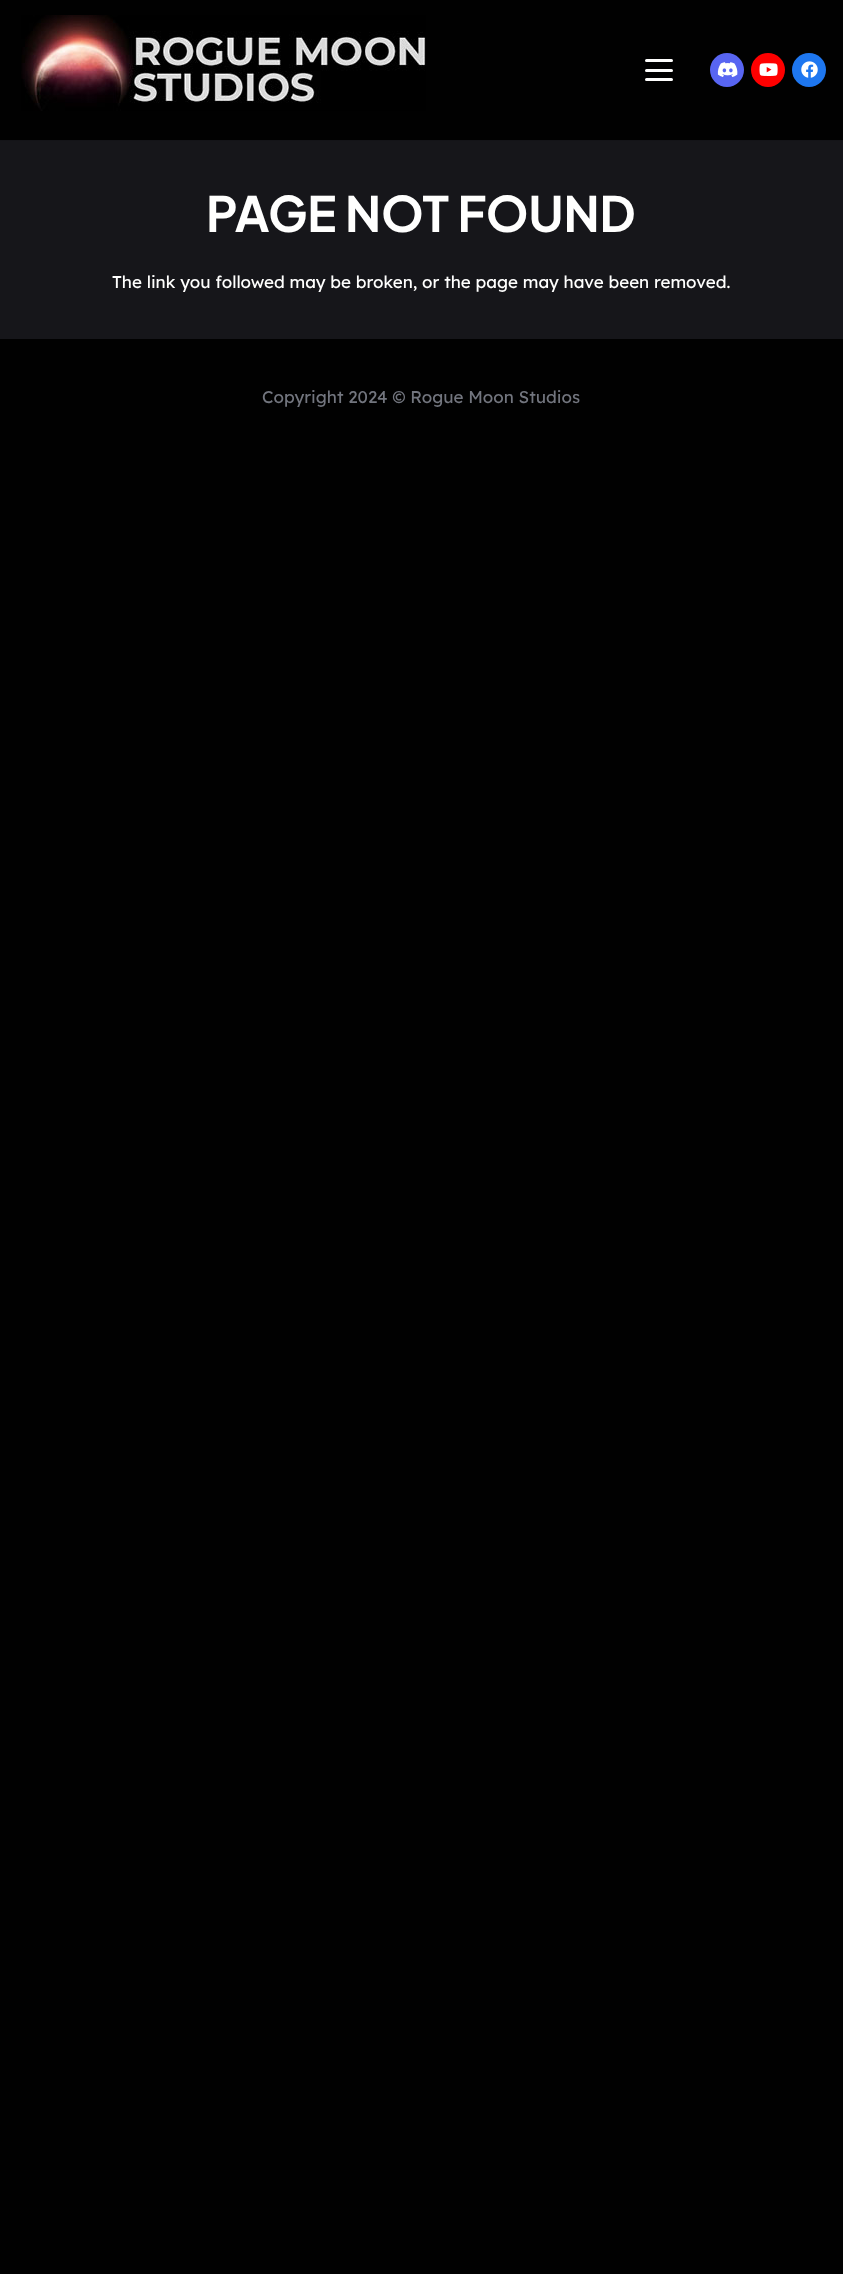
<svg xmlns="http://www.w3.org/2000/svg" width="843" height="2274">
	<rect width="100%" height="100%" fill="#010101" />
	<rect x="0" y="141" width="843" height="198" fill="#16161A" />
	<rect x="0" y="140" width="843" height="1" fill="#141418" />
	<image x="21" y="15" width="405" height="96" href="assets/img1.png" />
	<rect x="645" y="69" width="28" height="3" rx="1.5" fill="#FFFFFE" />
	<rect x="645" y="59" width="28" height="3" rx="1.5" fill="#FFFFFE" />
	<rect x="645" y="78" width="28" height="3" rx="1.5" fill="#FFFFFE" />
	<circle cx="727" cy="70" r="17" fill="#5865F2" />
	<image x="717" y="62" width="21" height="15" href="assets/img2.png" />
	<circle cx="768" cy="70" r="17" fill="#FF0000" />
	<image x="759" y="63" width="19" height="13" href="assets/img3.png" />
	<circle cx="809" cy="70" r="17" fill="#1E77F0" />
	<image x="801" y="61" width="17" height="17" href="assets/img4.png" />
	<text x="206" y="232" font-family="Plus Jakarta Sans" font-size="48.75" font-weight="700" fill="#FFFFFE">PAGE NOT FOUND</text>
	<text x="112" y="288" font-family="Lexend" font-size="17" fill="#FFFFFE">The link you followed may be broken, or the page may have been removed.</text>
	<text x="262" y="403" font-family="Lexend" font-size="17" fill="#72757E">Copyright 2024 © Rogue Moon Studios</text>
</svg>
